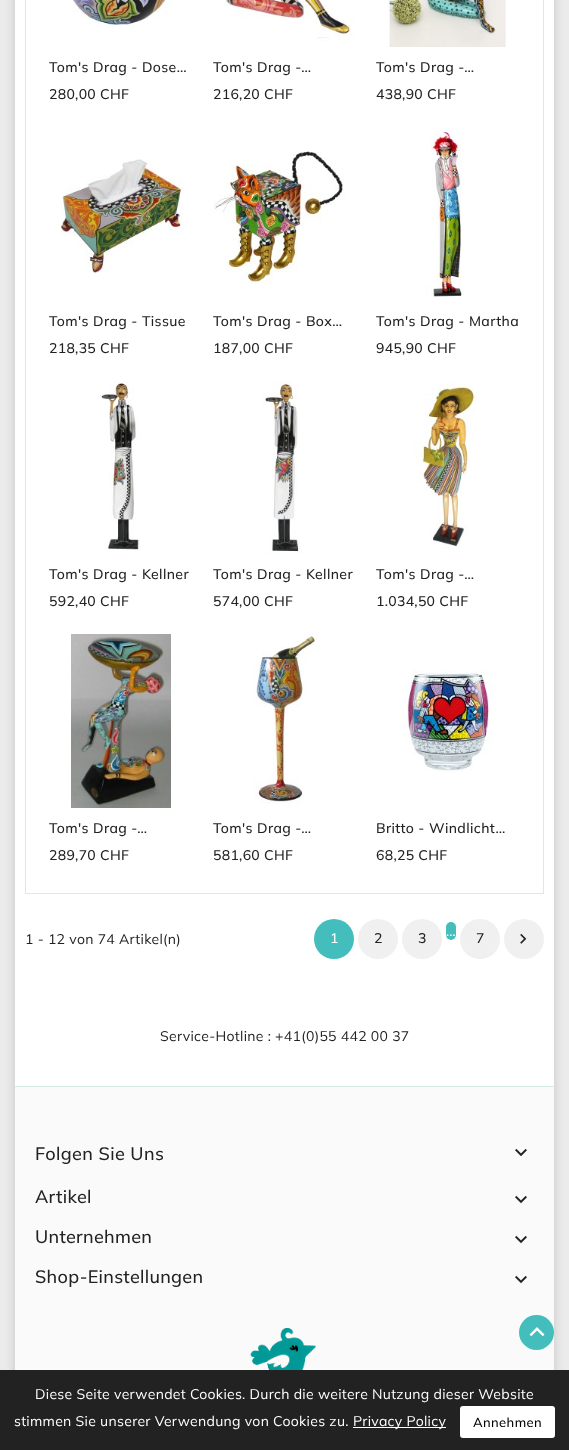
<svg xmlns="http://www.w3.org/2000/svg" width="569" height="1450">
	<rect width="100%" height="100%" fill="#EBEBEB" />
	<rect x="14" y="-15" width="541" height="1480" fill="#808080" fill-opacity="0.3" filter="blur(5px)" />
	<rect x="15" y="0" width="539" height="1086" fill="#FFFFFF" />
	<rect x="25.5" y="-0.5" width="518" height="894" fill="none" stroke="#E5E5E5" />
	<image x="73" y="0" width="97" height="29" href="assets/img1.png" />
	<text x="49" y="72" font-family="Mulish" font-size="14" font-weight="500" letter-spacing="0.4" fill="#222222">Tom's Drag - Dose…</text>
	<text x="49" y="99" font-family="Mulish" font-size="14" font-weight="500" letter-spacing="0.3" fill="#222222">280,00 CHF</text>
	<image x="225" y="0" width="131" height="42" href="assets/img2.png" />
	<text x="213" y="72" font-family="Mulish" font-size="14" font-weight="500" letter-spacing="0.4" fill="#222222">Tom's Drag -…</text>
	<text x="213" y="99" font-family="Mulish" font-size="14" font-weight="500" letter-spacing="0.3" fill="#222222">216,20 CHF</text>
	<image x="388" y="0" width="118" height="47" href="assets/img3.png" />
	<text x="376" y="72" font-family="Mulish" font-size="14" font-weight="500" letter-spacing="0.4" fill="#222222">Tom's Drag -…</text>
	<text x="376" y="99" font-family="Mulish" font-size="14" font-weight="500" letter-spacing="0.3" fill="#222222">438,90 CHF</text>
	<image x="61" y="159" width="122" height="114" href="assets/img4.png" />
	<text x="49" y="326" font-family="Mulish" font-size="14" font-weight="500" letter-spacing="0.4" fill="#222222">Tom's Drag - Tissue</text>
	<text x="49" y="353" font-family="Mulish" font-size="14" font-weight="500" letter-spacing="0.3" fill="#222222">218,35 CHF</text>
	<image x="213" y="151" width="132" height="134" href="assets/img5.png" />
	<text x="213" y="326" font-family="Mulish" font-size="14" font-weight="500" letter-spacing="0.4" fill="#222222">Tom's Drag - Box…</text>
	<text x="213" y="353" font-family="Mulish" font-size="14" font-weight="500" letter-spacing="0.3" fill="#222222">187,00 CHF</text>
	<image x="426" y="127" width="38" height="170" href="assets/img6.png" />
	<text x="376" y="326" font-family="Mulish" font-size="14" font-weight="500" letter-spacing="0.4" fill="#222222">Tom's Drag - Martha</text>
	<text x="376" y="353" font-family="Mulish" font-size="14" font-weight="500" letter-spacing="0.3" fill="#222222">945,90 CHF</text>
	<image x="98" y="381" width="42" height="169" href="assets/img7.png" />
	<text x="49" y="579" font-family="Mulish" font-size="14" font-weight="500" letter-spacing="0.4" fill="#222222">Tom's Drag - Kellner</text>
	<text x="49" y="606" font-family="Mulish" font-size="14" font-weight="500" letter-spacing="0.3" fill="#222222">592,40 CHF</text>
	<image x="262" y="381" width="40" height="173" href="assets/img8.png" />
	<text x="213" y="579" font-family="Mulish" font-size="14" font-weight="500" letter-spacing="0.4" fill="#222222">Tom's Drag - Kellner</text>
	<text x="213" y="606" font-family="Mulish" font-size="14" font-weight="500" letter-spacing="0.3" fill="#222222">574,00 CHF</text>
	<image x="413" y="381" width="64" height="168" href="assets/img9.png" />
	<text x="376" y="579" font-family="Mulish" font-size="14" font-weight="500" letter-spacing="0.4" fill="#222222">Tom's Drag -…</text>
	<text x="376" y="606" font-family="Mulish" font-size="14" font-weight="500" letter-spacing="0.3" fill="#222222">1.034,50 CHF</text>
	<image x="71" y="634" width="100" height="174" href="assets/img10.png" />
	<text x="49" y="833" font-family="Mulish" font-size="14" font-weight="500" letter-spacing="0.4" fill="#222222">Tom's Drag -…</text>
	<text x="49" y="860" font-family="Mulish" font-size="14" font-weight="500" letter-spacing="0.3" fill="#222222">289,70 CHF</text>
	<image x="252" y="634" width="66" height="170" href="assets/img11.png" />
	<text x="213" y="833" font-family="Mulish" font-size="14" font-weight="500" letter-spacing="0.4" fill="#222222">Tom's Drag -…</text>
	<text x="213" y="860" font-family="Mulish" font-size="14" font-weight="500" letter-spacing="0.3" fill="#222222">581,60 CHF</text>
	<image x="404" y="670" width="90" height="102" href="assets/img12.png" />
	<text x="376" y="833" font-family="Mulish" font-size="14" font-weight="500" letter-spacing="0.4" fill="#222222">Britto - Windlicht…</text>
	<text x="376" y="860" font-family="Mulish" font-size="14" font-weight="500" letter-spacing="0.3" fill="#222222">68,25 CHF</text>
	<text x="25" y="944" font-family="Mulish" font-size="14" letter-spacing="0.3" fill="#222222">1 - 12 von 74 Artikel(n)</text>
	<circle cx="334" cy="939" r="20" fill="#43BEBD" />
	<text x="330" y="943" font-family="Mulish" font-size="14" font-weight="500" letter-spacing="0.3" fill="#FFFFFF">1</text>
	<circle cx="378" cy="939" r="20" fill="#F0F0F0" />
	<text x="374" y="943" font-family="Mulish" font-size="14" font-weight="500" letter-spacing="0.3" fill="#222222">2</text>
	<circle cx="422" cy="939" r="20" fill="#F0F0F0" />
	<text x="418" y="943" font-family="Mulish" font-size="14" font-weight="500" letter-spacing="0.3" fill="#222222">3</text>
	<rect x="446" y="922" width="10" height="18" rx="5" fill="#43BEBD" />
	<text x="446" y="936" font-family="Mulish" font-size="14" letter-spacing="0.3" fill="#FFFFFF">…</text>
	<circle cx="480" cy="939" r="20" fill="#F0F0F0" />
	<text x="476" y="943" font-family="Mulish" font-size="14" font-weight="500" letter-spacing="0.3" fill="#222222">7</text>
	<circle cx="524" cy="939" r="20" fill="#F0F0F0" />
	<image x="520" y="933" width="7" height="11" href="assets/img13.png" />
	<text x="160" y="1041" font-family="Mulish" font-size="14" letter-spacing="0.3" fill="#222222">Service-Hotline : +41(0)55 442 00 37</text>
	<rect x="15" y="1087" width="539" height="283" fill="#FAFAFA" />
	<rect x="15" y="1086" width="539" height="1" fill="#D8EAE7" />
	<text x="35" y="1160" font-family="Mulish" font-size="18" font-weight="500" letter-spacing="0.4" fill="#222222">Folgen Sie Uns</text>
	<image x="515" y="1148" width="12" height="9" href="assets/img14.png" />
	<text x="35" y="1203" font-family="Mulish" font-size="18" font-weight="500" letter-spacing="0.3" fill="#222222">Artikel</text>
	<image x="515" y="1195" width="12" height="9" href="assets/img14.png" />
	<text x="35" y="1243" font-family="Mulish" font-size="18" font-weight="500" letter-spacing="0.3" fill="#222222">Unternehmen</text>
	<image x="515" y="1235" width="12" height="9" href="assets/img14.png" />
	<text x="35" y="1283" font-family="Mulish" font-size="18" font-weight="500" letter-spacing="0.3" fill="#222222">Shop-Einstellungen</text>
	<image x="515" y="1275" width="12" height="9" href="assets/img14.png" />
	<image x="250" y="1328" width="67" height="42" href="assets/img15.png" />
	<rect x="0" y="1370" width="569" height="80" fill="#222222" />
	<g font-family="Mulish" font-size="14" letter-spacing="0.3" fill="#FFFFFF">
		<text x="35" y="1399">Diese Seite verwendet Cookies. Durch die weitere Nutzung dieser Website</text>
		<text x="14" y="1426">stimmen Sie unserer Verwendung von Cookies zu.</text>
	</g>
	<rect x="353" y="1427" width="93" height="1" fill="#FFFFFF" />
	<text x="353" y="1426" font-family="Mulish" font-size="14" letter-spacing="0.3" fill="#FFFFFF">Privacy Policy</text>
	<rect x="460" y="1406" width="95" height="32" rx="3" fill="#FFFFFF" />
	<text x="473" y="1427" font-family="Mulish" font-size="13" font-weight="500" letter-spacing="0.4" fill="#000000">Annehmen</text>
	<circle cx="536.5" cy="1332.5" r="17.5" fill="#43BEBD" />
	<image x="529" y="1327" width="16" height="10" href="assets/img16.png" />
</svg>
